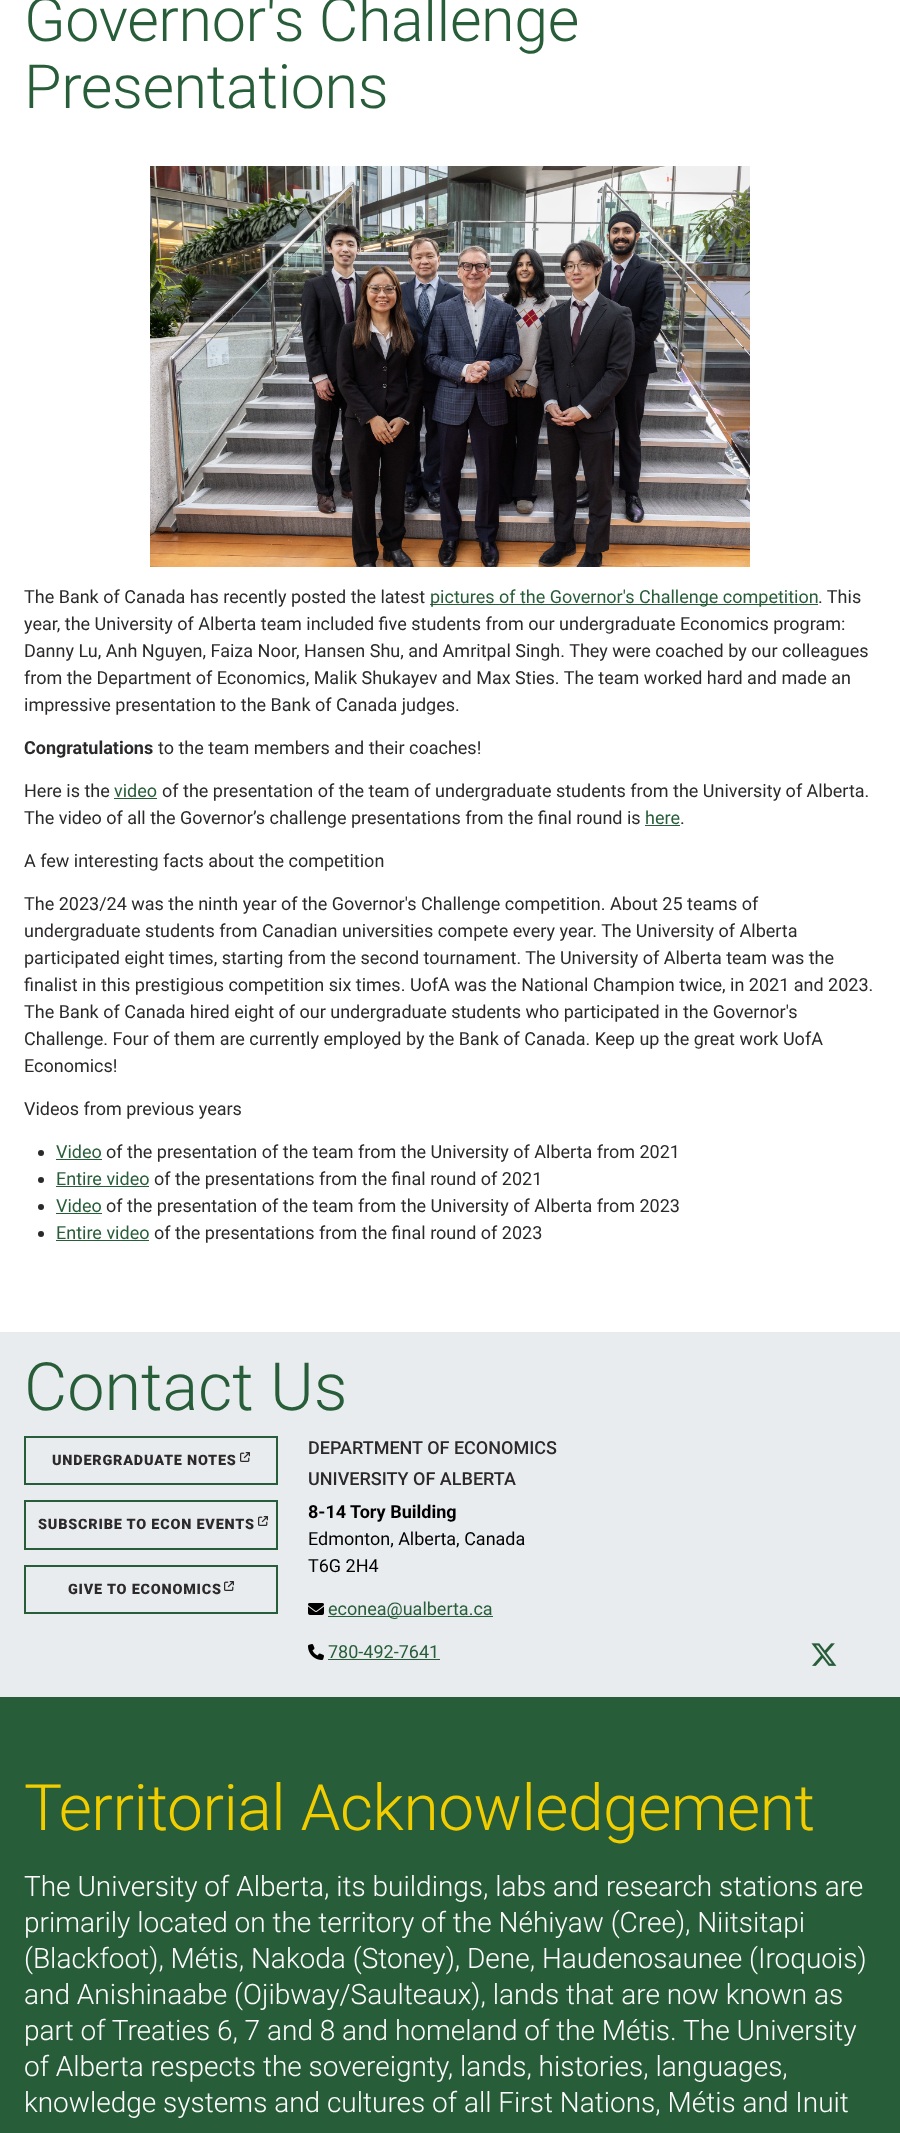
<svg xmlns="http://www.w3.org/2000/svg" width="900" height="2133">
	<rect width="100%" height="100%" fill="#FFFFFF" />
	<g font-family="Roboto" font-size="61" font-weight="300" letter-spacing="-0.4" fill="#275D38">
		<text x="24" y="41">Governor's Challenge</text>
		<text x="24" y="108">Presentations</text>
	</g>
	<image x="150" y="166" width="600" height="401" href="assets/img1.png" />
	<text x="24" y="603" font-family="Roboto" font-size="18" fill="#2B292A">The Bank of Canada has recently posted the latest</text>
	<rect x="430" y="604" width="388" height="1" fill="#275D38" />
	<text x="430" y="603" font-family="Roboto" font-size="18" fill="#275D38">pictures of the Governor's Challenge competition</text>
	<g font-family="Roboto" font-size="18" fill="#2B292A">
		<text x="818" y="603">. This</text>
		<text x="24" y="630">year, the University of Alberta team included five students from our undergraduate Economics program:</text>
		<text x="24" y="657">Danny Lu, Anh Nguyen, Faiza Noor, Hansen Shu, and Amritpal Singh. They were coached by our colleagues</text>
		<text x="24" y="684">from the Department of Economics, Malik Shukayev and Max Sties. The team worked hard and made an</text>
		<text x="24" y="711">impressive presentation to the Bank of Canada judges.</text>
	</g>
	<text x="24" y="754" font-family="Roboto" font-size="18" font-weight="700" fill="#2B292A">Congratulations</text>
	<g font-family="Roboto" font-size="18" fill="#2B292A">
		<text x="158" y="754">to the team members and their coaches!</text>
		<text x="24" y="797">Here is the</text>
	</g>
	<text x="114" y="797" font-family="Roboto" font-size="18" fill="#275D38">video</text>
	<rect x="114" y="798" width="43" height="1" fill="#275D38" />
	<g font-family="Roboto" font-size="18" fill="#2B292A">
		<text x="162" y="797">of the presentation of the team of undergraduate students from the University of Alberta.</text>
		<text x="24" y="824">The video of all the Governor’s challenge presentations from the final round is</text>
	</g>
	<text x="645" y="824" font-family="Roboto" font-size="18" fill="#275D38">here</text>
	<rect x="645" y="825" width="35" height="1" fill="#275D38" />
	<g font-family="Roboto" font-size="18" fill="#2B292A">
		<text x="680" y="824">.</text>
		<text x="24" y="867">A few interesting facts about the competition</text>
		<text x="24" y="910">The 2023/24 was the ninth year of the Governor's Challenge competition. About 25 teams of</text>
		<text x="24" y="937">undergraduate students from Canadian universities compete every year. The University of Alberta</text>
		<text x="24" y="964">participated eight times, starting from the second tournament. The University of Alberta team was the</text>
		<text x="24" y="991">finalist in this prestigious competition six times. UofA was the National Champion twice, in 2021 and 2023.</text>
		<text x="24" y="1018">The Bank of Canada hired eight of our undergraduate students who participated in the Governor's</text>
		<text x="24" y="1045">Challenge. Four of them are currently employed by the Bank of Canada. Keep up the great work UofA</text>
		<text x="24" y="1072">Economics!</text>
		<text x="24" y="1115">Videos from previous years</text>
	</g>
	<circle cx="41" cy="1153" r="3" fill="#2B292A" />
	<text x="56" y="1158" font-family="Roboto" font-size="18" fill="#275D38">Video</text>
	<rect x="56" y="1159" width="46" height="1" fill="#275D38" />
	<text x="106" y="1158" font-family="Roboto" font-size="18" fill="#2B292A">of the presentation of the team from the University of Alberta from 2021</text>
	<circle cx="41" cy="1180" r="3" fill="#2B292A" />
	<text x="56" y="1185" font-family="Roboto" font-size="18" fill="#275D38">Entire video</text>
	<rect x="56" y="1186" width="93" height="1" fill="#275D38" />
	<text x="154" y="1185" font-family="Roboto" font-size="18" fill="#2B292A">of the presentations from the final round of 2021</text>
	<circle cx="41" cy="1207" r="3" fill="#2B292A" />
	<text x="56" y="1212" font-family="Roboto" font-size="18" fill="#275D38">Video</text>
	<rect x="56" y="1213" width="46" height="1" fill="#275D38" />
	<text x="106" y="1212" font-family="Roboto" font-size="18" fill="#2B292A">of the presentation of the team from the University of Alberta from 2023</text>
	<circle cx="41" cy="1234" r="3" fill="#2B292A" />
	<text x="56" y="1239" font-family="Roboto" font-size="18" fill="#275D38">Entire video</text>
	<rect x="56" y="1240" width="93" height="1" fill="#275D38" />
	<text x="154" y="1239" font-family="Roboto" font-size="18" fill="#2B292A">of the presentations from the final round of 2023</text>
	<rect x="0" y="1697" width="900" height="436" fill="#275D38" />
	<rect x="0" y="1332" width="900" height="365" fill="#E9ECEF" />
	<text x="24" y="1410" font-family="Roboto" font-size="66.5" font-weight="300" fill="#275D38">Contact Us</text>
	<rect x="25" y="1437" width="252" height="47" fill="none" stroke="#275D38" stroke-width="2" />
	<text x="52" y="1465" font-family="Roboto" font-size="14.4" font-weight="900" letter-spacing="0.8" fill="#2B292A">UNDERGRADUATE NOTES</text>
	<image x="240" y="1452" width="10" height="10" href="assets/img2.png" />
	<rect x="25" y="1501" width="252" height="48" fill="none" stroke="#275D38" stroke-width="2" />
	<text x="38" y="1529" font-family="Roboto" font-size="14.4" font-weight="900" letter-spacing="0.8" fill="#2B292A">SUBSCRIBE TO ECON EVENTS</text>
	<image x="258" y="1516" width="10" height="10" href="assets/img2.png" />
	<rect x="25" y="1566" width="252" height="47" fill="none" stroke="#275D38" stroke-width="2" />
	<text x="68" y="1594" font-family="Roboto" font-size="14.4" font-weight="900" letter-spacing="0.8" fill="#2B292A">GIVE TO ECONOMICS</text>
	<image x="224" y="1581" width="10" height="10" href="assets/img2.png" />
	<g font-family="Roboto" font-size="18" font-weight="500" fill="#2B292A">
		<text x="308" y="1454">DEPARTMENT OF ECONOMICS</text>
		<text x="308" y="1485">UNIVERSITY OF ALBERTA</text>
	</g>
	<text x="308" y="1518" font-family="Roboto" font-size="18" font-weight="700" fill="#000000">8-14 Tory Building</text>
	<g font-family="Roboto" font-size="18" fill="#000000">
		<text x="308" y="1545">Edmonton, Alberta, Canada</text>
		<text x="308" y="1572">T6G 2H4</text>
	</g>
	<image x="308" y="1603" width="16" height="12" href="assets/img3.png" />
	<rect x="328" y="1616" width="165" height="1" fill="#275D38" />
	<text x="328" y="1615" font-family="Roboto" font-size="18" fill="#275D38">econea@ualberta.ca</text>
	<image x="308" y="1644" width="16" height="16" href="assets/img4.png" />
	<text x="328" y="1658" font-family="Roboto" font-size="18" fill="#275D38">780-492-7641</text>
	<rect x="328" y="1659" width="112" height="1" fill="#275D38" />
	<image x="811" y="1643" width="26" height="23" href="assets/img5.png" />
	<text x="24" y="1830" font-family="Roboto" font-size="64" font-weight="300" letter-spacing="-0.45" fill="#F2CD00">Territorial Acknowledgement</text>
	<g font-family="Roboto" font-size="28" font-weight="300" fill="#FFFFFF">
		<text x="24" y="1896">The University of Alberta, its buildings, labs and research stations are</text>
		<text x="24" y="1932">primarily located on the territory of the Néhiyaw (Cree), Niitsitapi</text>
		<text x="24" y="1968">(Blackfoot), Métis, Nakoda (Stoney), Dene, Haudenosaunee (Iroquois)</text>
		<text x="24" y="2004">and Anishinaabe (Ojibway/Saulteaux), lands that are now known as</text>
		<text x="24" y="2040">part of Treaties 6, 7 and 8 and homeland of the Métis. The University</text>
		<text x="24" y="2076">of Alberta respects the sovereignty, lands, histories, languages,</text>
		<text x="24" y="2112">knowledge systems and cultures of all First Nations, Métis and Inuit</text>
	</g>
</svg>
